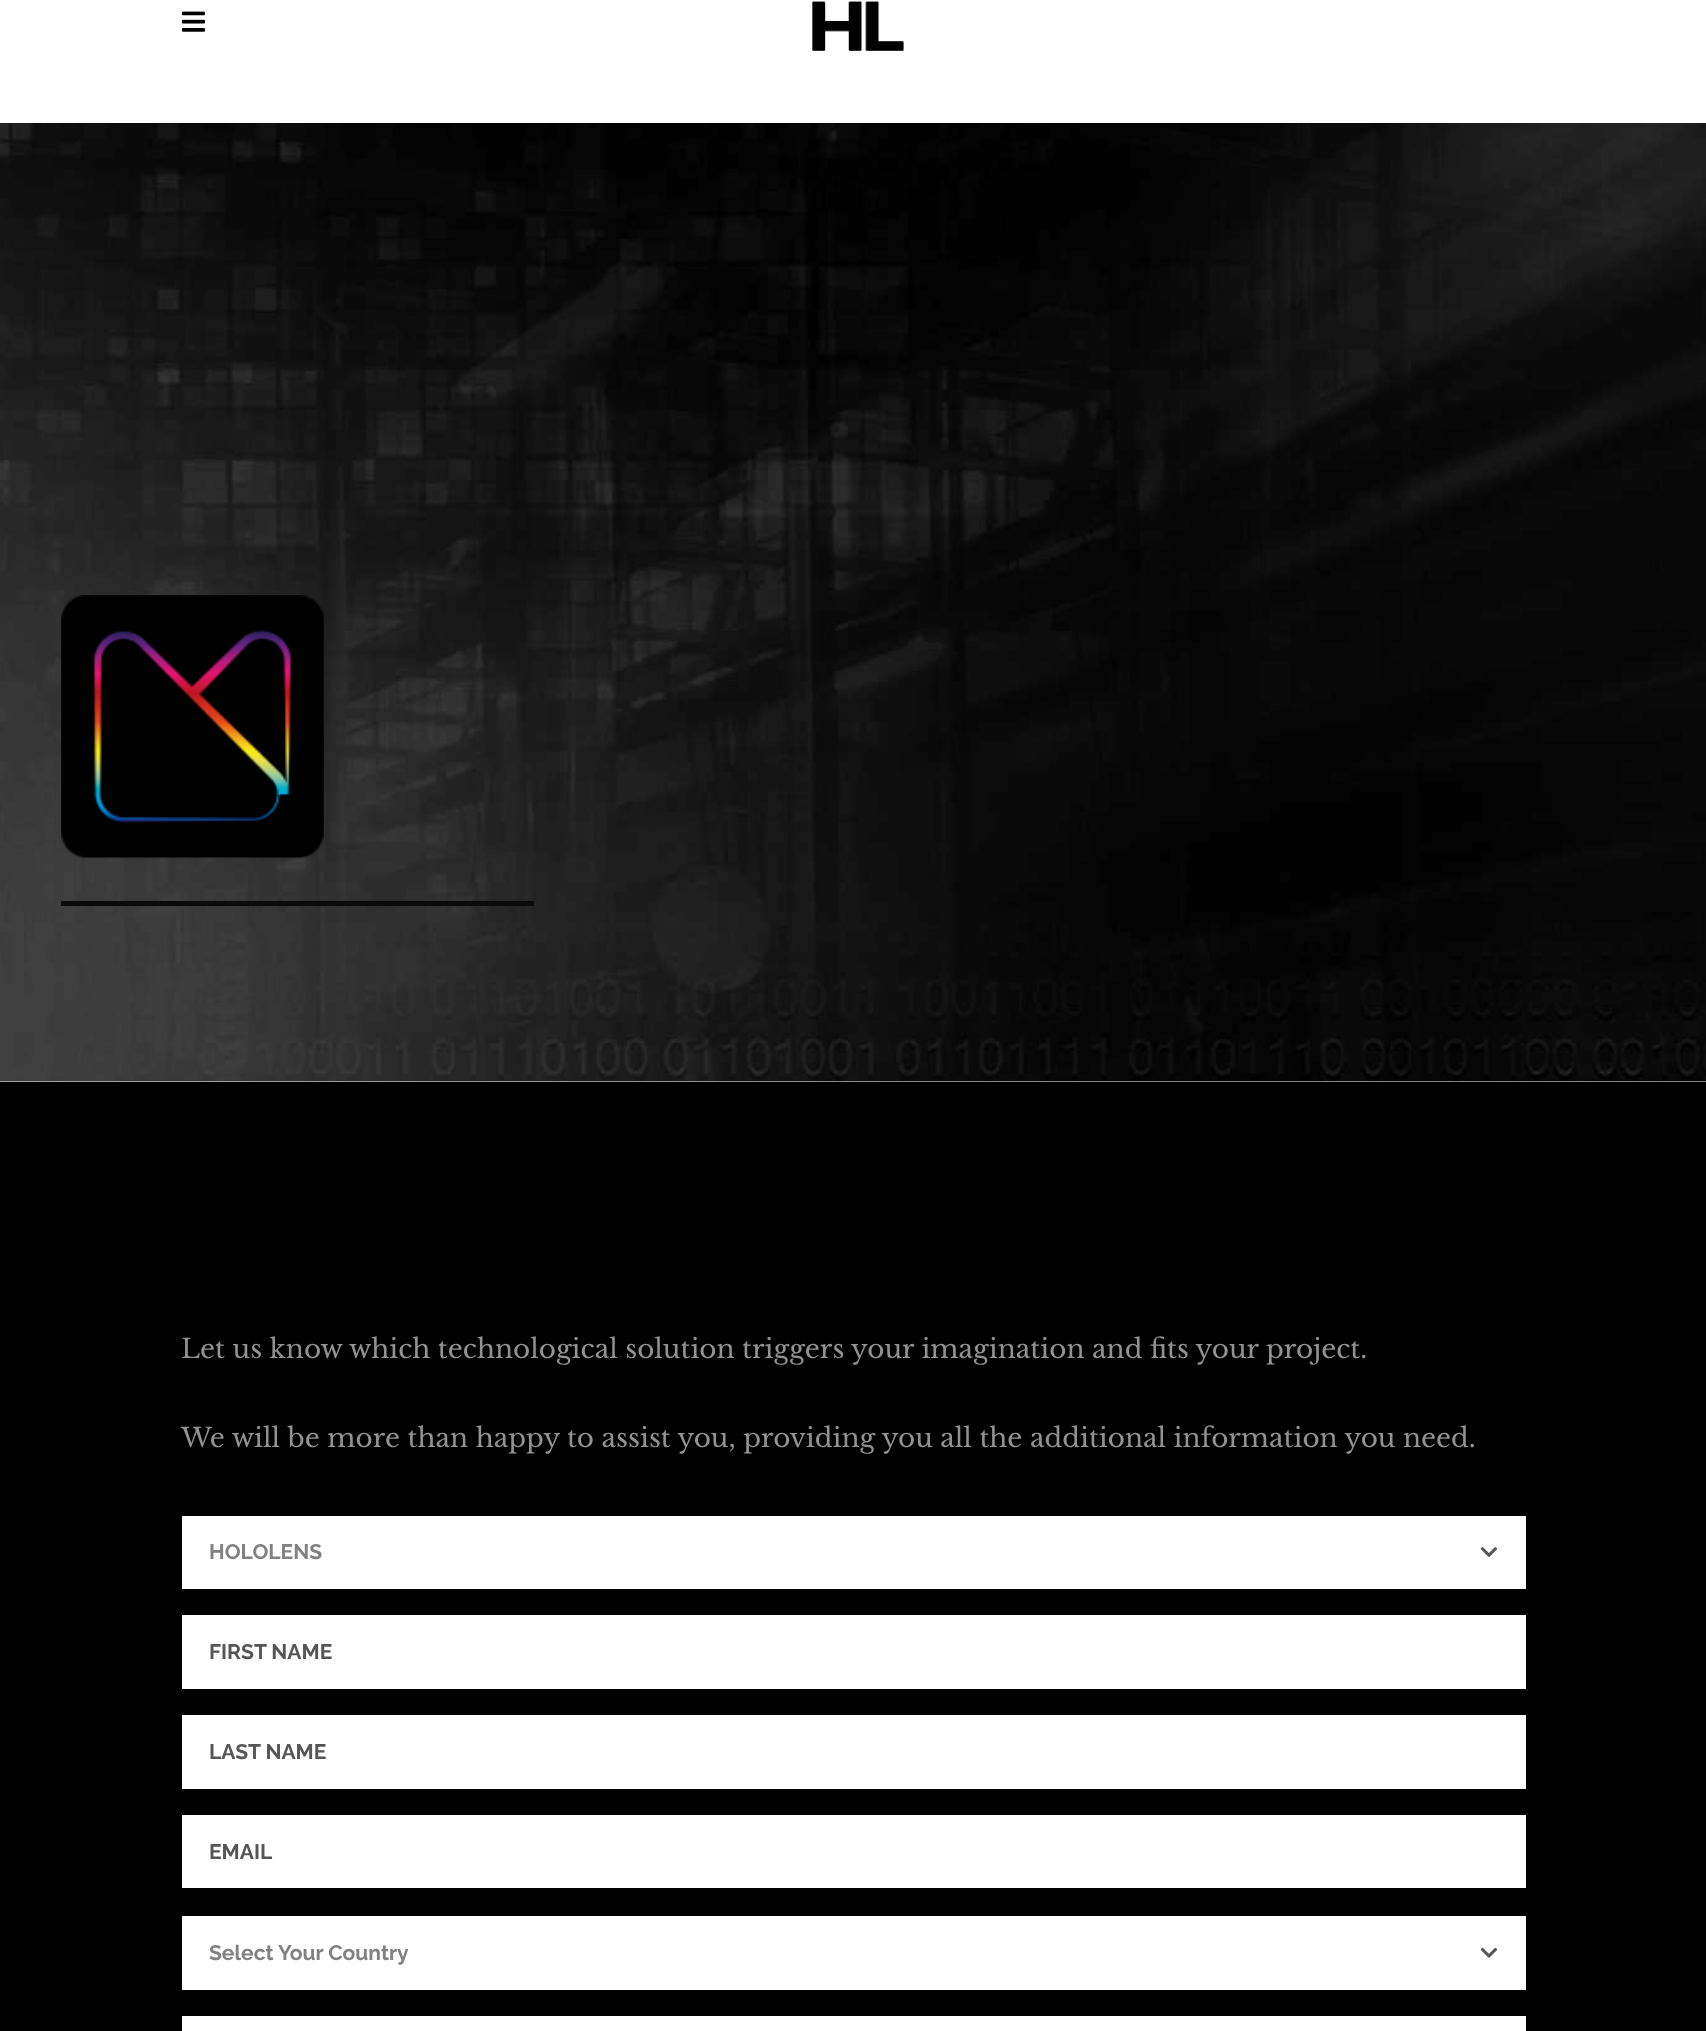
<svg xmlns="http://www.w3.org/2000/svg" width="1706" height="2031">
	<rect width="100%" height="100%" fill="#FFFFFF" />
	<image x="182" y="11" width="23" height="21" href="assets/img1.png" />
	<image x="812" y="0" width="92" height="51" href="assets/img2.png" />
	<image x="0" y="123" width="1706" height="959" href="assets/img3.png" />
	<image x="61" y="595" width="263" height="263" href="assets/img4.png" />
	<rect x="61" y="901" width="473" height="5" fill="#0A0A0A" />
	<rect x="0" y="1082" width="1706" height="949" fill="#000000" />
	<g font-family="Libre Baskerville" font-size="26.25" fill="#929292">
		<text x="181" y="1358">Let us know which technological solution triggers your imagination and fits your project.</text>
		<text x="181" y="1447">We will be more than happy to assist you, providing you all the additional information you need.</text>
	</g>
	<rect x="182" y="1516" width="1344" height="73" fill="#FFFFFF" />
	<text x="209" y="1559" font-family="Raleway" font-size="21" font-weight="700" fill="#818181">HOLOLENS</text>
	<image x="1480" y="1547" width="18" height="10" href="assets/img5.png" />
	<rect x="182" y="1615" width="1344" height="74" fill="#FFFFFF" />
	<text x="209" y="1659" font-family="Raleway" font-size="21" font-weight="700" fill="#565656">FIRST NAME</text>
	<rect x="182" y="1715" width="1344" height="74" fill="#FFFFFF" />
	<text x="209" y="1759" font-family="Raleway" font-size="21" font-weight="700" fill="#565656">LAST NAME</text>
	<rect x="182" y="1815" width="1344" height="73" fill="#FFFFFF" />
	<text x="209" y="1859" font-family="Raleway" font-size="21" font-weight="700" fill="#565656">EMAIL</text>
	<rect x="182" y="1916" width="1344" height="74" fill="#FFFFFF" />
	<text x="209" y="1960" font-family="Raleway" font-size="21" font-weight="700" fill="#818181">Select Your Country</text>
	<image x="1480" y="1947" width="18" height="11" href="assets/img6.png" />
	<rect x="182" y="2016" width="1344" height="15" fill="#FFFFFF" />
</svg>
